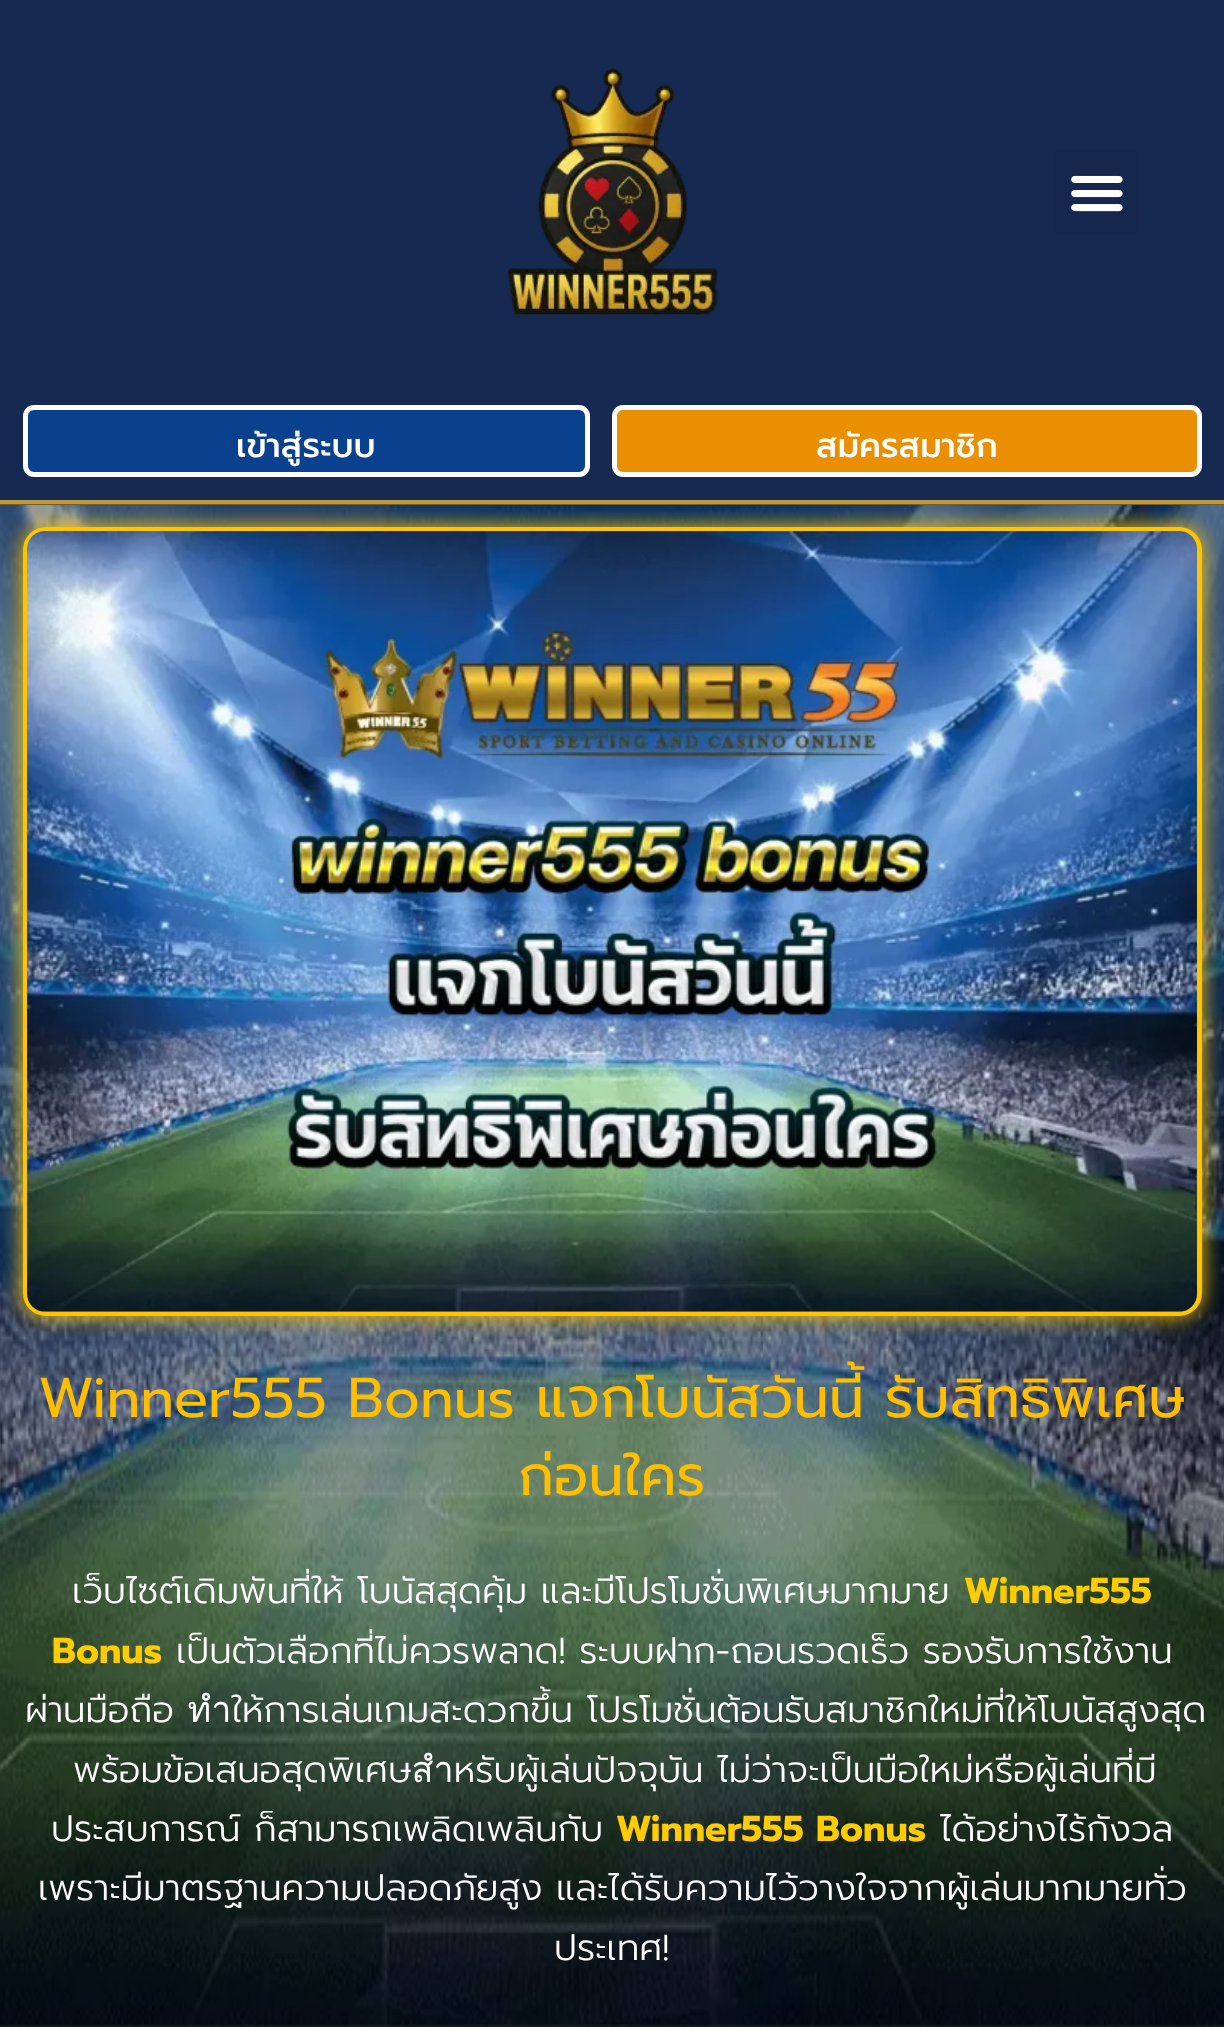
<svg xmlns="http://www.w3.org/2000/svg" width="1224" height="2027">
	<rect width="100%" height="100%" fill="#FFFFFF" />
	<rect x="0" y="0" width="1224" height="500" fill="#162950" />
	<rect x="0" y="500" width="1224" height="5" fill="#BD9842" />
	<image x="507" y="68" width="211" height="248" href="assets/img1.png" />
	<rect x="1053" y="149" width="86" height="85" rx="7" fill="#15274C" />
	<image x="1071" y="175" width="52" height="37" href="assets/img2.png" />
	<rect x="25.5" y="407.5" width="562" height="67" rx="8.5" fill="#0A418F" stroke="#FFFFFF" stroke-width="5" />
	<text x="236" y="457" font-family="Prompt" font-size="33.75" font-weight="500" fill="#FFFFFF">เข้าสู่ระบบ</text>
	<rect x="614.5" y="407.5" width="585" height="67" rx="8.5" fill="#E98F01" stroke="#FDFDFD" stroke-width="5" />
	<text x="816" y="457" font-family="Prompt" font-size="33.75" font-weight="500" fill="#FFFFFF">สมัครสมาชิก</text>
	<image x="0" y="505" width="1224" height="1522" href="assets/img4.png" />
	<rect x="0" y="504" width="1224" height="1523" fill="#000000" fill-opacity="0.39" />
	<rect x="23" y="527" width="1179" height="789" rx="23" fill="#FFC400" filter="blur(11px)" />
	<rect x="25.5" y="529.5" width="1174" height="784" rx="20.5" fill="none" stroke="#FFC400" stroke-width="5" />
	<image x="27" y="531" width="1170" height="781" href="assets/img3.png" />
	<g font-family="Prompt" font-size="56.25" fill="#FFBE00">
		<text x="38" y="1417">Winner555 Bonus แจกโบนัสวันนี้ รับสิทธิพิเศษ</text>
		<text x="518" y="1495">ก่อนใคร</text>
	</g>
	<text x="72" y="1603" font-family="Prompt" font-size="36" font-weight="300" fill="#FFFFFF">เว็บไซต์เดิมพันที่ให้ โบนัสสุดคุ้ม และมีโปรโมชั่นพิเศษมากมาย</text>
	<g font-family="Prompt" font-size="36" font-weight="700" fill="#FFCC00">
		<text x="964" y="1603">Winner555</text>
		<text x="52" y="1663">Bonus</text>
	</g>
	<g font-family="Prompt" font-size="36" font-weight="300" fill="#FFFFFF">
		<text x="176" y="1663">เป็นตัวเลือกที่ไม่ควรพลาด! ระบบฝาก-ถอนรวดเร็ว รองรับการใช้งาน</text>
		<text x="25" y="1722">ผ่านมือถือ ทำให้การเล่นเกมสะดวกขึ้น โปรโมชั่นต้อนรับสมาชิกใหม่ที่ให้โบนัสสูงสุด</text>
		<text x="73" y="1782">พร้อมข้อเสนอสุดพิเศษสำหรับผู้เล่นปัจจุบัน ไม่ว่าจะเป็นมือใหม่หรือผู้เล่นที่มี</text>
		<text x="51" y="1841">ประสบการณ์ ก็สามารถเพลิดเพลินกับ</text>
	</g>
	<text x="616" y="1841" font-family="Prompt" font-size="36" font-weight="700" fill="#FFCC00">Winner555 Bonus</text>
	<g font-family="Prompt" font-size="36" font-weight="300" fill="#FFFFFF">
		<text x="940" y="1841">ได้อย่างไร้กังวล</text>
		<text x="38" y="1900">เพราะมีมาตรฐานความปลอดภัยสูง และได้รับความไว้วางใจจากผู้เล่นมากมายทั่ว</text>
		<text x="554" y="1960">ประเทศ!</text>
	</g>
</svg>
